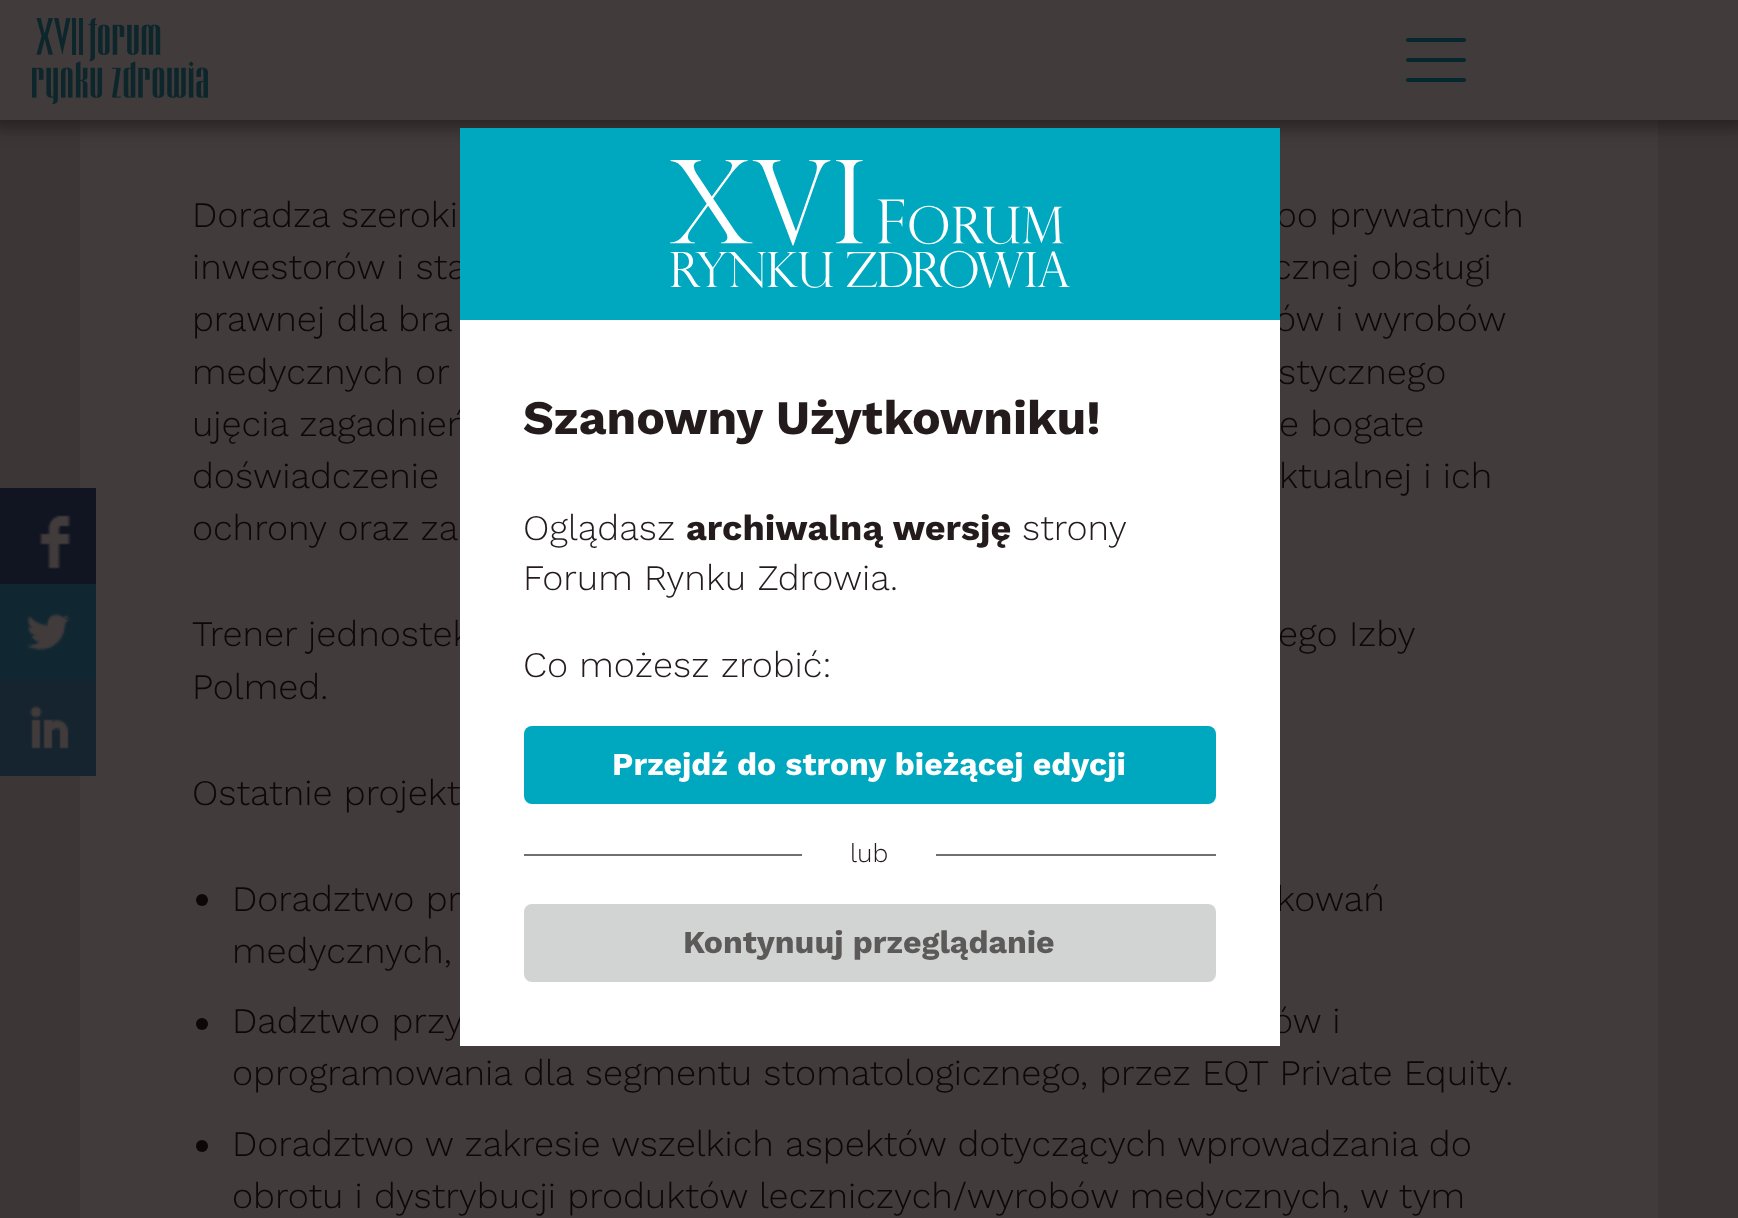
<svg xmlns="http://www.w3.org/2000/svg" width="1738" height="1218">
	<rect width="100%" height="100%" fill="#3C3636" />
	<rect x="80" y="120" width="1578" height="1098" fill="#413B3B" />
	<rect x="-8" y="-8" width="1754" height="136" fill="#120C0C" fill-opacity="0.5" filter="blur(8px)" />
	<rect x="0" y="0" width="1738" height="120" fill="#413B3B" />
	<image x="32" y="18" width="176" height="86" href="assets/img1.png" />
	<rect x="1406" y="38" width="60" height="4" rx="2" fill="#06272D" />
	<rect x="1406" y="58" width="60" height="4" rx="2" fill="#06272D" />
	<rect x="1406" y="78" width="60" height="4" rx="2" fill="#06272D" />
	<g font-family="Work Sans" font-size="36" font-weight="300" fill="#0E0707">
		<text x="192" y="227">Doradza szeroki</text>
		<text x="1275" y="227">po prywatnych</text>
		<text x="192" y="279">inwestorów i sta</text>
		<text x="1272" y="279">cznej obsługi</text>
		<text x="192" y="331">prawnej dla bra</text>
		<text x="1275" y="331">ów i wyrobów</text>
		<text x="192" y="384">medycznych or</text>
		<text x="1278" y="384">stycznego</text>
		<text x="192" y="436">ujęcia zagadnień</text>
		<text x="1279" y="436">e bogate</text>
		<text x="192" y="488">doświadczenie</text>
		<text x="1279" y="488">ktualnej i ich</text>
		<text x="192" y="540">ochrony oraz za</text>
		<text x="192" y="646">Trener jednostek</text>
		<text x="1278" y="646">ego Izby</text>
		<text x="192" y="699">Polmed.</text>
		<text x="192" y="805">Ostatnie projekt</text>
	</g>
	<circle cx="202" cy="900" r="6" fill="#0E0707" />
	<g font-family="Work Sans" font-size="36" font-weight="300" fill="#0E0707">
		<text x="232" y="911">Doradztwo pr</text>
		<text x="1276" y="911">kowań</text>
		<text x="232" y="963">medycznych,</text>
	</g>
	<circle cx="202" cy="1024" r="6" fill="#0E0707" />
	<g font-family="Work Sans" font-size="36" font-weight="300" fill="#0E0707">
		<text x="232" y="1033">Dadztwo przy</text>
		<text x="1272" y="1033">ów i</text>
		<text x="232" y="1085">oprogramowania dla segmentu stomatologicznego, przez EQT Private Equity.</text>
	</g>
	<circle cx="202" cy="1146" r="6" fill="#0E0707" />
	<g font-family="Work Sans" font-size="36" font-weight="300" fill="#0E0707">
		<text x="232" y="1156">Doradztwo w zakresie wszelkich aspektów dotyczących wprowadzania do</text>
		<text x="232" y="1208">obrotu i dystrybucji produktów leczniczych/wyrobów medycznych, w tym</text>
	</g>
	<image x="0" y="488" width="96" height="96" href="assets/img2.png" />
	<image x="0" y="584" width="96" height="96" href="assets/img3.png" />
	<image x="0" y="680" width="96" height="96" href="assets/img4.png" />
	<rect x="460" y="320" width="820" height="726" fill="#FFFFFF" />
	<rect x="460" y="128" width="820" height="192" fill="#00A8BF" />
	<image x="670" y="160" width="400" height="128" href="assets/img5.png" />
	<text x="523" y="434" font-family="Work Sans" font-size="48" font-weight="700" fill="#241C1C">Szanowny Użytkowniku!</text>
	<text x="523" y="540" font-family="Work Sans" font-size="36" font-weight="300" fill="#241C1C">Oglądasz</text>
	<text x="686" y="540" font-family="Work Sans" font-size="36" font-weight="700" fill="#241C1C">archiwalną wersję</text>
	<g font-family="Work Sans" font-size="36" font-weight="300" fill="#241C1C">
		<text x="1022" y="540">strony</text>
		<text x="523" y="590">Forum Rynku Zdrowia.</text>
		<text x="523" y="677">Co możesz zrobić:</text>
	</g>
	<rect x="524" y="726" width="692" height="78" rx="8" fill="#00A8BF" />
	<text x="612" y="775" font-family="Work Sans" font-size="32" font-weight="700" fill="#FFFFFF">Przejdź do strony bieżącej edycji</text>
	<rect x="524" y="854" width="692" height="2" fill="#707070" />
	<rect x="802" y="854" width="134" height="2" fill="#FFFFFF" />
	<text x="850" y="862" font-family="Work Sans" font-size="26" font-weight="300" fill="#241C1C">lub</text>
	<rect x="524" y="904" width="692" height="78" rx="8" fill="#D2D3D3" />
	<text x="683" y="953" font-family="Work Sans" font-size="32" font-weight="700" fill="#5C5959">Kontynuuj przeglądanie</text>
</svg>
